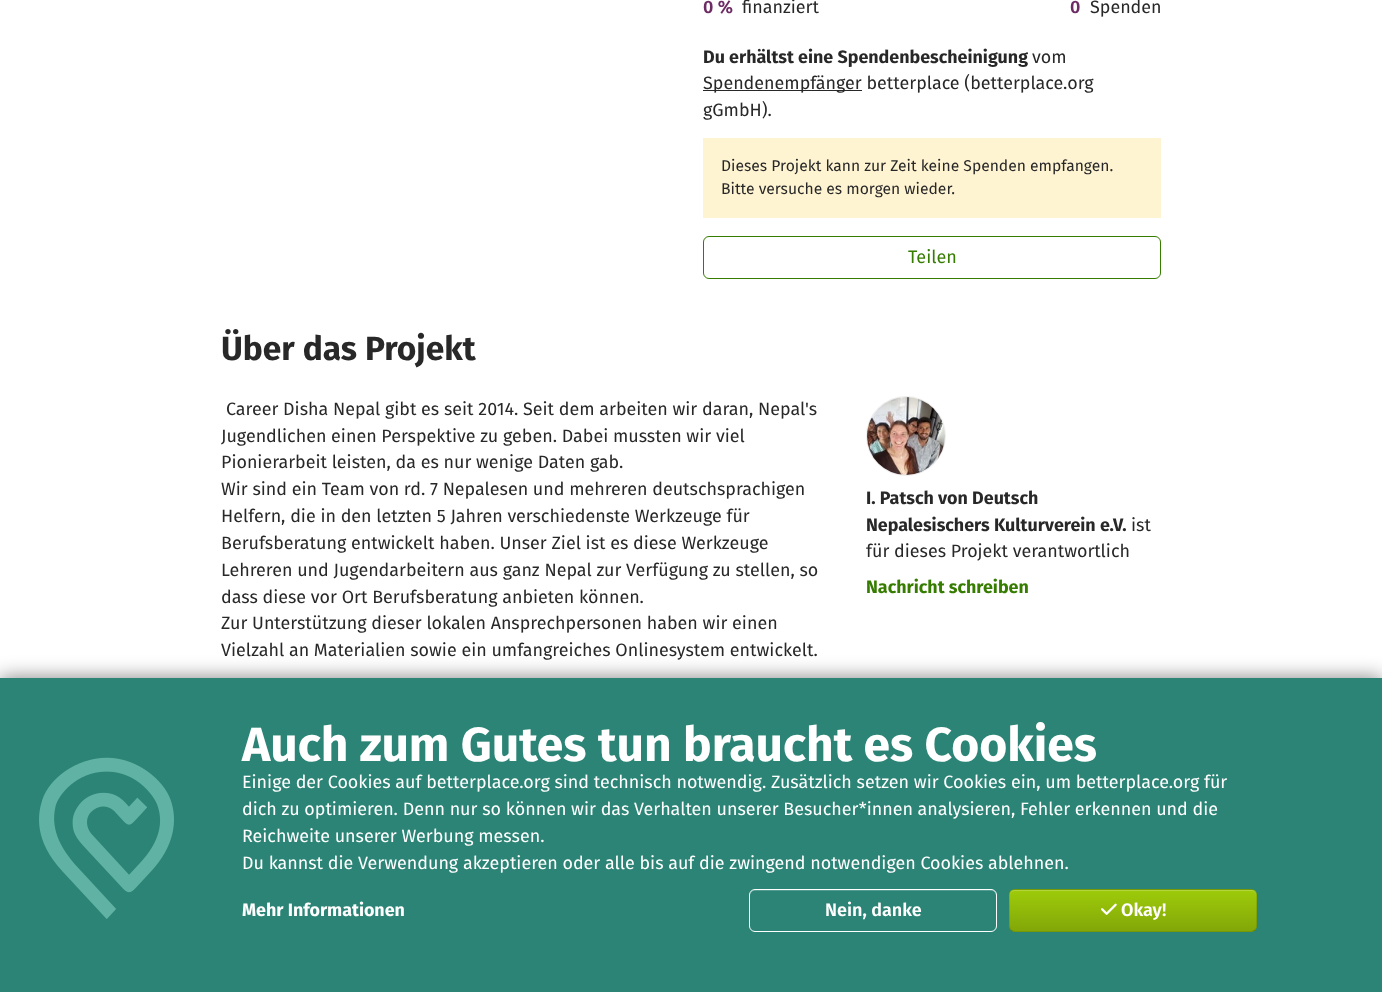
<svg xmlns="http://www.w3.org/2000/svg" width="1382" height="992">
	<defs>
		<clipPath id="clip1"><rect x="1009" y="889" width="248" height="43" rx="6" /></clipPath>
		<linearGradient id="g1" gradientUnits="userSpaceOnUse" x1="1133" y1="849" x2="1133" y2="890"><stop offset="0" stop-color="#9ECB0A" /><stop offset="1" stop-color="#82A708" /></linearGradient>
		<linearGradient id="g2" gradientUnits="userSpaceOnUse" x1="1133" y1="890" x2="1133" y2="931"><stop offset="0" stop-color="#9ECB0A" /><stop offset="1" stop-color="#82A708" /></linearGradient>
		<linearGradient id="g3" gradientUnits="userSpaceOnUse" x1="1133" y1="931" x2="1133" y2="972"><stop offset="0" stop-color="#9ECB0A" /><stop offset="1" stop-color="#82A708" /></linearGradient>
	</defs>
	<rect width="100%" height="100%" fill="#FFFFFF" />
	<text x="703" y="13" font-family="Fira Sans" font-size="17.9" font-weight="600" fill="#6D2C64">0 %</text>
	<text x="742" y="13" font-family="Fira Sans" font-size="17.9" fill="#282828">finanziert</text>
	<text x="1070" y="13" font-family="Fira Sans" font-size="17.9" font-weight="600" fill="#6D2C64">0</text>
	<text x="1090" y="13" font-family="Fira Sans" font-size="17.9" fill="#282828">Spenden</text>
	<text x="703" y="63" font-family="Fira Sans" font-size="17.9" font-weight="700" fill="#282828">Du erhältst eine Spendenbescheinigung</text>
	<text x="1032" y="63" font-family="Fira Sans" font-size="17.9" fill="#282828">vom</text>
	<rect x="703" y="90" width="159" height="1" fill="#282828" />
	<g font-family="Fira Sans" font-size="17.9" fill="#282828">
		<text x="703" y="89">Spendenempfänger betterplace (betterplace.org</text>
		<text x="703" y="116">gGmbH).</text>
	</g>
	<rect x="703" y="138" width="458" height="80" fill="#FFF4D2" />
	<g font-family="Fira Sans" font-size="15.65" fill="#282828">
		<text x="721" y="171">Dieses Projekt kann zur Zeit keine Spenden empfangen.</text>
		<text x="721" y="194">Bitte versuche es morgen wieder.</text>
	</g>
	<rect x="703.5" y="236.5" width="457" height="42" rx="5.5" fill="none" stroke="#357C00" />
	<text x="908" y="263" font-family="Fira Sans" font-size="18" fill="#357C00">Teilen</text>
	<text x="221" y="360" font-family="Fira Sans" font-size="33.5" font-weight="700" fill="#282828">Über das Projekt</text>
	<g font-family="Fira Sans" font-size="17.9" fill="#282828">
		<text x="226" y="415">Career Disha Nepal gibt es seit 2014. Seit dem arbeiten wir daran, Nepal's</text>
		<text x="221" y="442">Jugendlichen einen Perspektive zu geben. Dabei mussten wir viel</text>
		<text x="221" y="468">Pionierarbeit leisten, da es nur wenige Daten gab.</text>
		<text x="221" y="495">Wir sind ein Team von rd. 7 Nepalesen und mehreren deutschsprachigen</text>
		<text x="221" y="522">Helfern, die in den letzten 5 Jahren verschiedenste Werkzeuge für</text>
		<text x="221" y="549">Berufsberatung entwickelt haben. Unser Ziel ist es diese Werkzeuge</text>
		<text x="221" y="576">Lehreren und Jugendarbeitern aus ganz Nepal zur Verfügung zu stellen, so</text>
		<text x="221" y="603">dass diese vor Ort Berufsberatung anbieten können.</text>
		<text x="221" y="629">Zur Unterstützung dieser lokalen Ansprechpersonen haben wir einen</text>
		<text x="221" y="656">Vielzahl an Materialien sowie ein umfangreiches Onlinesystem entwickelt.</text>
	</g>
	<circle cx="906" cy="436" r="39.5" fill="none" stroke="#EEEEEE" />
	<image x="867" y="397" width="78" height="78" href="assets/img1.png" />
	<g font-family="Fira Sans" font-size="17.9" font-weight="700" fill="#282828">
		<text x="866" y="504">I. Patsch von Deutsch</text>
		<text x="866" y="531">Nepalesischers Kulturverein e.V.</text>
	</g>
	<g font-family="Fira Sans" font-size="17.9" fill="#282828">
		<text x="1131" y="531">ist</text>
		<text x="866" y="557">für dieses Projekt verantwortlich</text>
	</g>
	<text x="866" y="593" font-family="Fira Sans" font-size="17.9" font-weight="700" fill="#357C00">Nachricht schreiben</text>
	<rect x="0" y="678" width="1382" height="314" fill="#000000" fill-opacity="0.5" filter="blur(10px)" />
	<rect x="0" y="678" width="1382" height="314" fill="#2B8475" />
	<image x="39" y="757" width="135" height="162" href="assets/img2.png" />
	<text x="242" y="761" font-family="Fira Sans" font-size="48" font-weight="700" fill="#FFFFFF">Auch zum Gutes tun braucht es Cookies</text>
	<g font-family="Fira Sans" font-size="17.9" fill="#FFFFFF">
		<text x="242" y="788">Einige der Cookies auf betterplace.org sind technisch notwendig. Zusätzlich setzen wir Cookies ein, um betterplace.org für</text>
		<text x="242" y="815">dich zu optimieren. Denn nur so können wir das Verhalten unserer Besucher*innen analysieren, Fehler erkennen und die</text>
		<text x="242" y="842">Reichweite unserer Werbung messen.</text>
		<text x="242" y="869">Du kannst die Verwendung akzeptieren oder alle bis auf die zwingend notwendigen Cookies ablehnen.</text>
	</g>
	<text x="242" y="916" font-family="Fira Sans" font-size="17.9" font-weight="700" fill="#FFFFFF">Mehr Informationen</text>
	<path d="M755 891H991C994 891 996 893 996 896V895C996 892 994 890 991 890H755C752 890 750 892 750 895V896C750 893 752 891 755 891Z" fill="#559D91" />
	<rect x="749.5" y="889.5" width="247" height="42" rx="5.5" fill="none" stroke="#FFFFFF" />
	<text x="825" y="916" font-family="Fira Sans" font-size="18" font-weight="600" fill="#FFFFFF">Nein, danke</text>
	<g clip-path="url(#clip1)">
		<rect x="1009" y="889" width="248" height="1" fill="url(#g1)" />
		<rect x="1009" y="890" width="248" height="41" fill="url(#g2)" />
		<rect x="1009" y="931" width="248" height="1" fill="url(#g3)" />
	</g>
	<path d="M1015 891H1251C1254 891 1256 893 1256 896V895C1256 892 1254 890 1251 890H1015C1012 890 1010 892 1010 895V896C1010 893 1012 891 1015 891Z" fill="#B1D53B" />
	<path d="M1255 930C1254 931 1252.5 931.5 1251 931.5H1015C1013.5 931.5 1012 931 1011 930" fill="none" stroke="#000000" stroke-opacity="0.25" />
	<path d="M1011 930C1010 929 1009.5 927.5 1009.5 926V895C1009.5 893.5 1010 892 1011 891C1012 890 1013.5 889.5 1015 889.5H1251C1252.5 889.5 1254 890 1255 891C1256 892 1256.5 893.5 1256.5 895V926C1256.5 927.5 1256 929 1255 930" fill="none" stroke="#000000" stroke-opacity="0.1" />
	<image x="1101" y="903" width="16" height="12" href="assets/img3.png" />
	<text x="1121" y="916" font-family="Fira Sans" font-size="18" font-weight="600" fill="#FFFFFF">Okay!</text>
</svg>
